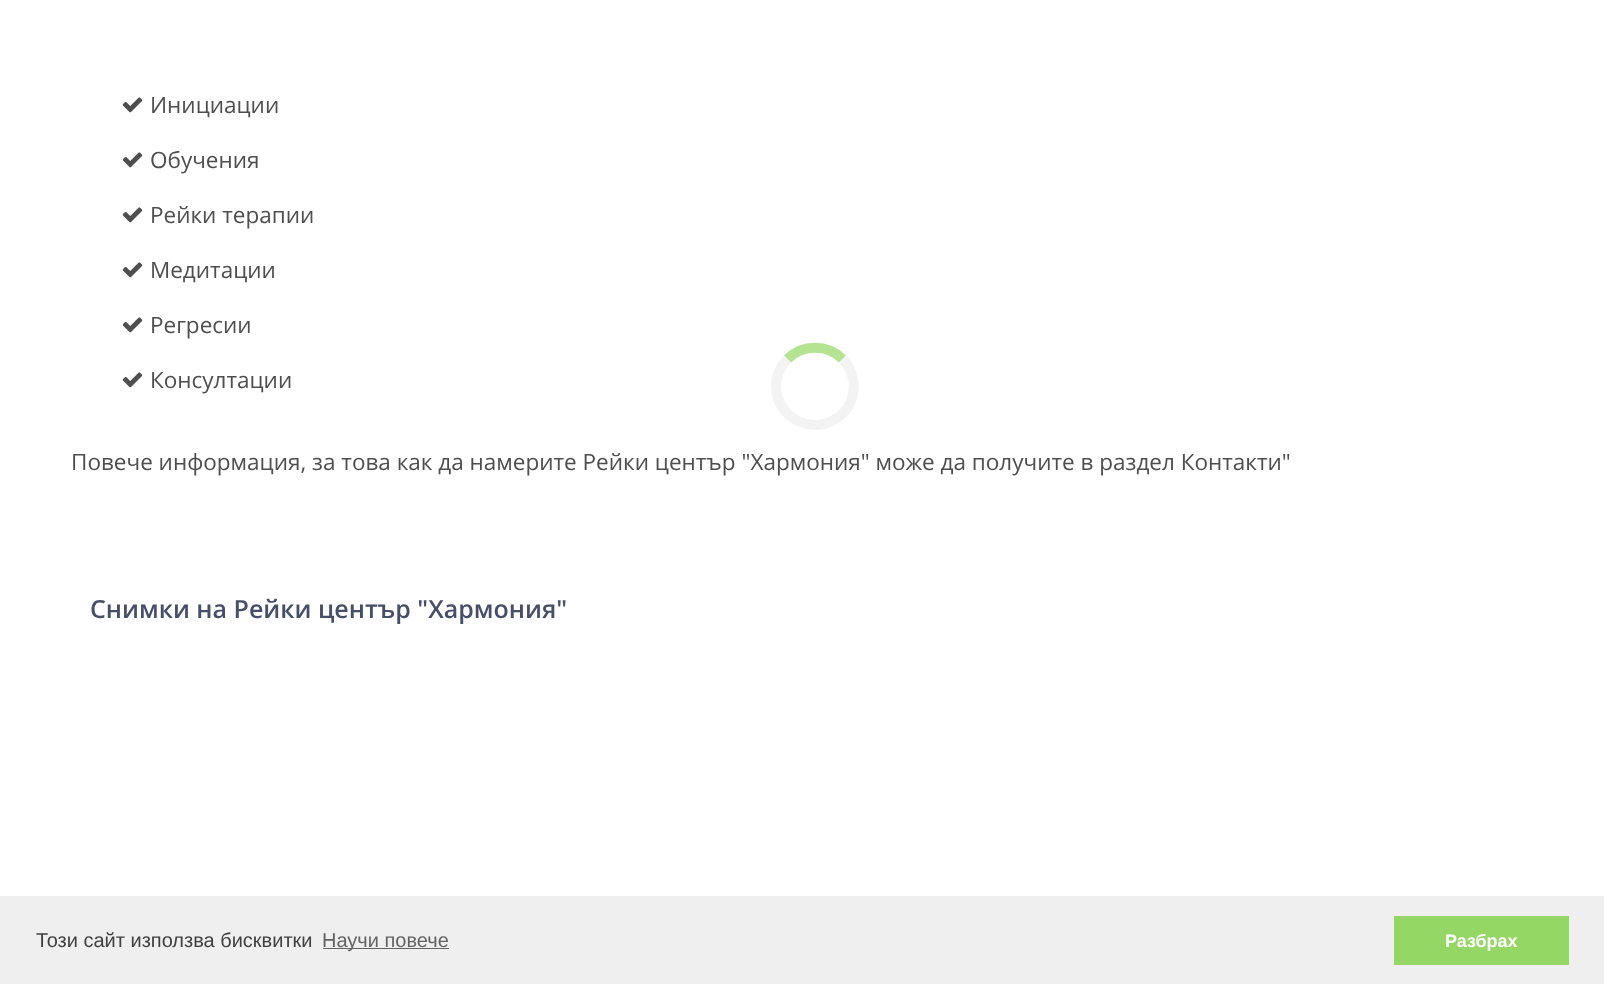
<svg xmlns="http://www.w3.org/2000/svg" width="1604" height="984">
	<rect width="100%" height="100%" fill="#FFFFFF" />
	<image x="122" y="97" width="21" height="16" href="assets/img1.png" />
	<text x="150" y="113" font-family="Open Sans" font-size="22.5" fill="#4E4E4E">Инициации</text>
	<image x="122" y="152" width="21" height="16" href="assets/img1.png" />
	<text x="150" y="168" font-family="Open Sans" font-size="22.5" fill="#4E4E4E">Обучения</text>
	<image x="122" y="207" width="21" height="16" href="assets/img1.png" />
	<text x="150" y="223" font-family="Open Sans" font-size="22.5" fill="#4E4E4E">Рейки терапии</text>
	<image x="122" y="262" width="21" height="16" href="assets/img1.png" />
	<text x="150" y="278" font-family="Open Sans" font-size="22.5" fill="#4E4E4E">Медитации</text>
	<image x="122" y="317" width="21" height="16" href="assets/img1.png" />
	<text x="150" y="333" font-family="Open Sans" font-size="22.5" fill="#4E4E4E">Регресии</text>
	<image x="122" y="372" width="21" height="16" href="assets/img1.png" />
	<g font-family="Open Sans" font-size="22.5" fill="#4E4E4E">
		<text x="150" y="388">Консултации</text>
		<text x="71" y="470">Повече информация, за това как да намерите Рейки център "Хармония" може да получите в раздел Контакти"</text>
	</g>
	<text x="90" y="618" font-family="Open Sans" font-size="25" font-weight="600" fill="#474E69">Снимки на Рейки център "Хармония"</text>
	<path d="M787.5 359C802.5 344 827.5 344 842.5 359" fill="none" stroke="#B4E391" stroke-width="10" />
	<path d="M842.5 359C851.5 368 855.5 381.5 853 394C851.5 401.5 848 408.5 842.5 413.5C818 438 776 420.5 776 386C776 376 780.5 366 787.5 359" fill="none" stroke="#F3F3F3" stroke-width="10" />
	<rect x="0" y="896" width="1604" height="88" fill="#EFEFEF" />
	<text x="36" y="947" font-family="Liberation Sans" font-size="20" fill="#404040">Този сайт използва бисквитки</text>
	<rect x="323" y="948" width="126" height="1" fill="#636363" />
	<text x="322" y="947" font-family="Liberation Sans" font-size="20" fill="#636363">Научи повече</text>
	<rect x="1394" y="916" width="175" height="49" fill="#94D764" />
	<text x="1445" y="947" font-family="Liberation Sans" font-size="18" font-weight="700" fill="#FFFFFF">Разбрах</text>
</svg>
